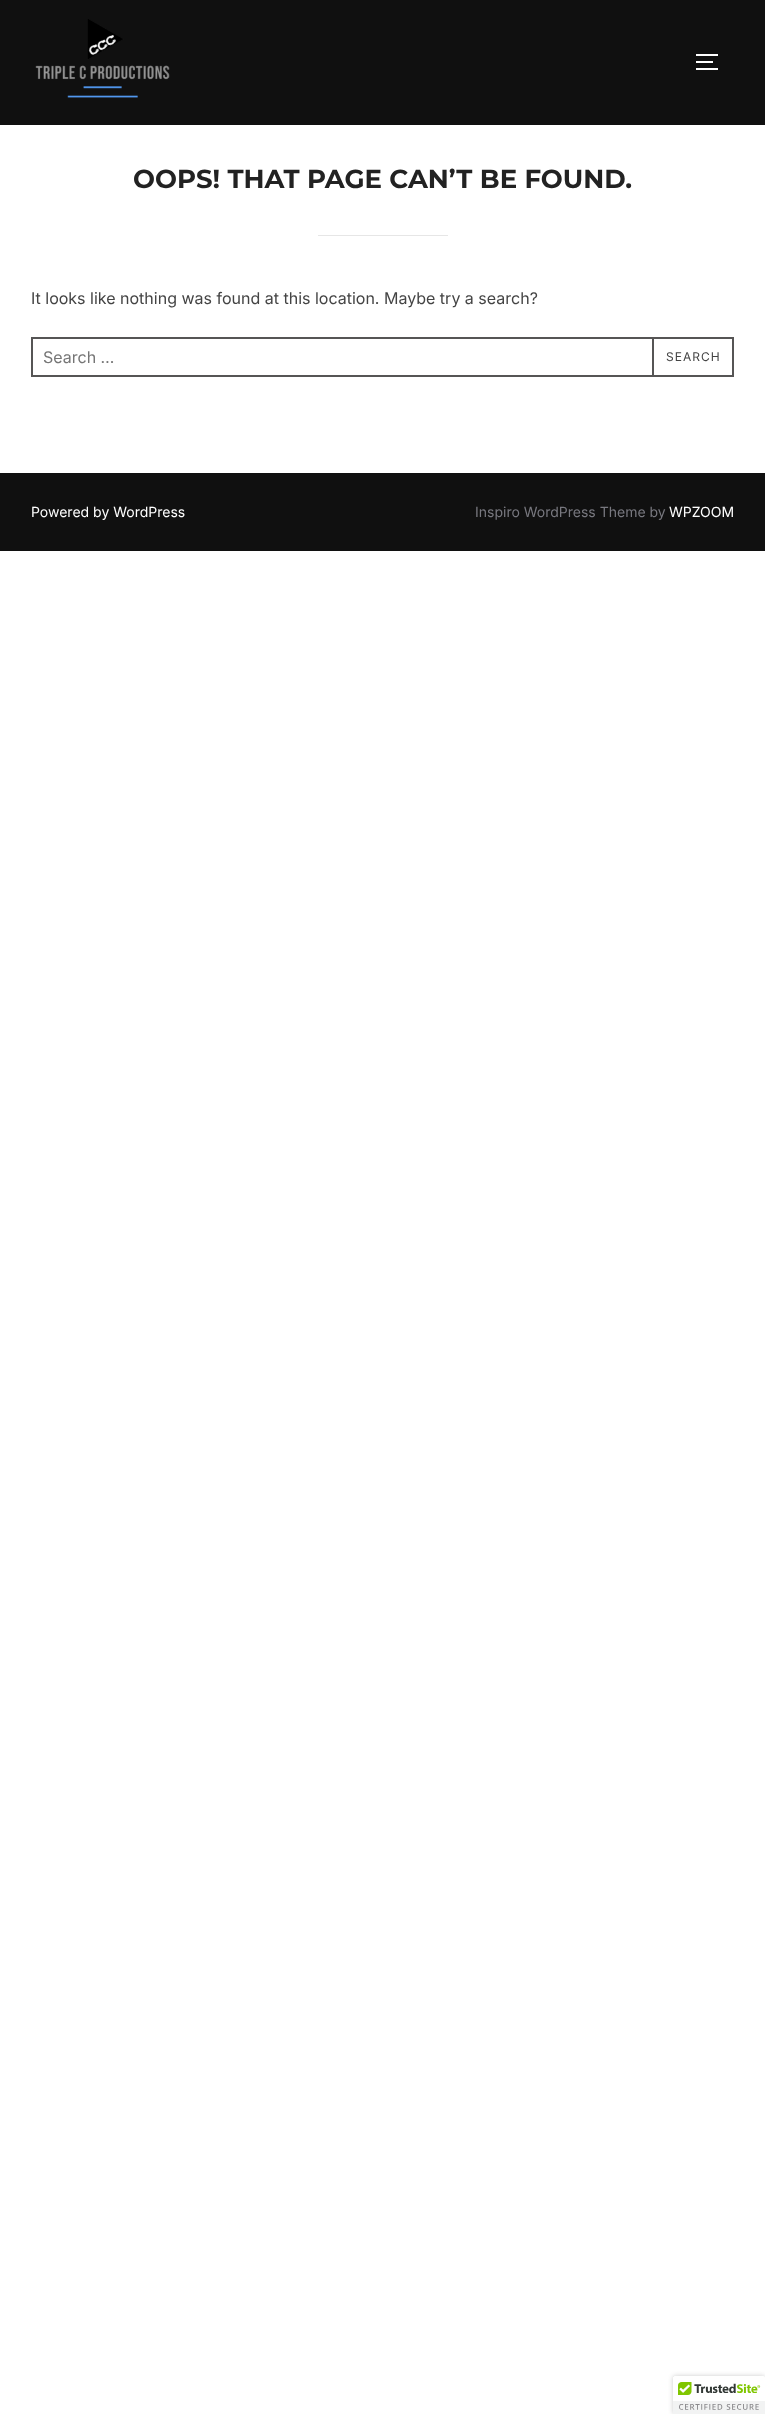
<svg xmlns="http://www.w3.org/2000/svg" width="765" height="2414">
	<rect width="100%" height="100%" fill="#FFFFFF" />
	<rect x="0" y="0" width="765" height="125" fill="#101010" />
	<image x="35" y="19" width="135" height="79" href="assets/img1.png" />
	<rect x="696" y="54" width="22" height="2" fill="#FFFFFF" />
	<rect x="696" y="61" width="17" height="2" fill="#FFFFFF" />
	<rect x="696" y="68" width="22" height="2" fill="#FFFFFF" />
	<text x="133" y="188" font-family="Montserrat" font-size="26" font-weight="700" fill="#222222">OOPS! THAT PAGE CAN’T BE FOUND.</text>
	<rect x="318" y="235" width="130" height="1" fill="#E6E6E6" />
	<text x="31" y="304" font-family="Inter" font-size="16" fill="#444444">It looks like nothing was found at this location. Maybe try a search?</text>
	<rect x="32" y="338" width="701" height="38" fill="none" stroke="#565555" stroke-width="2" />
	<text x="43" y="363" font-family="Inter" font-size="16" fill="#757575">Search …</text>
	<rect x="653" y="338" width="80" height="38" fill="none" stroke="#565555" stroke-width="2" />
	<text x="666" y="361" font-family="Inter" font-size="12" letter-spacing="1" fill="#444444">SEARCH</text>
	<rect x="0" y="473" width="765" height="78" fill="#101010" />
	<text x="31" y="517" font-family="Inter" font-size="14" fill="#FFFFFF">Powered by WordPress</text>
	<text x="475" y="517" font-family="Inter" font-size="14" fill="#78787F">Inspiro WordPress Theme by</text>
	<text x="669" y="517" font-family="Inter" font-size="14" fill="#FFFFFF">WPZOOM</text>
	<rect x="673" y="2376" width="92" height="38" rx="2" fill="#000000" fill-opacity="0.2" filter="blur(2.5px)" />
	<path d="M675 2376H765V2414H673V2378C673 2377 674 2376 675 2376Z" fill="#FFFFFF" />
	<image x="673" y="2376" width="92" height="38" href="assets/img2.png" />
</svg>
